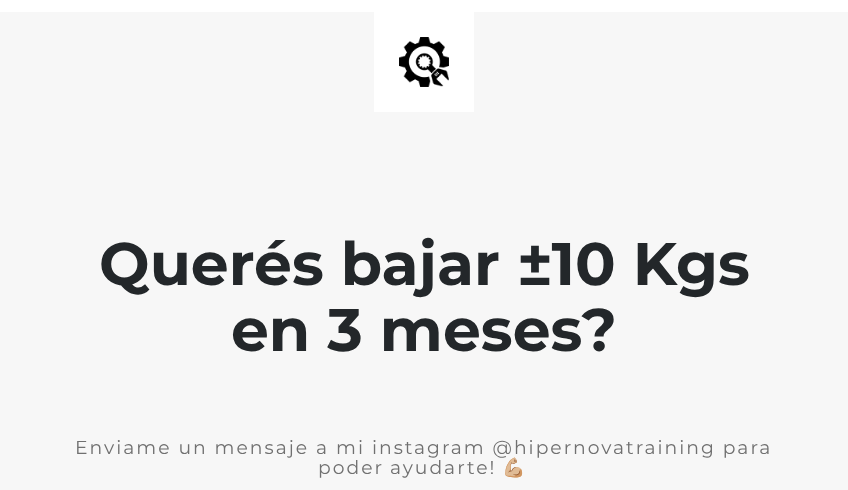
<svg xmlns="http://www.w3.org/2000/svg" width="848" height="490">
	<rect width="100%" height="100%" fill="#F7F7F7" />
	<rect x="0" y="0" width="848" height="12" fill="#FFFFFF" />
	<rect x="374" y="12" width="100" height="100" fill="#FFFFFF" />
	<image x="399" y="37" width="50" height="50" href="assets/img1.png" />
	<g font-family="Montserrat" font-size="60" font-weight="100" fill="#23272A">
		<text x="99" y="285">Querés bajar ±10 Kgs</text>
		<text x="231" y="351">en 3 meses?</text>
	</g>
	<g font-family="'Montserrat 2'" font-size="18.75" font-weight="100" letter-spacing="2" fill="#707070">
		<text x="75" y="454">Enviame un mensaje a mi instagram @hipernovatraining para</text>
		<text x="318" y="474" word-spacing="-1">poder ayudarte!</text>
	</g>
	<text x="502" y="474" font-family="Noto Color Emoji" font-size="18.75" letter-spacing="2" fill="#707070">💪🏼</text>
</svg>
